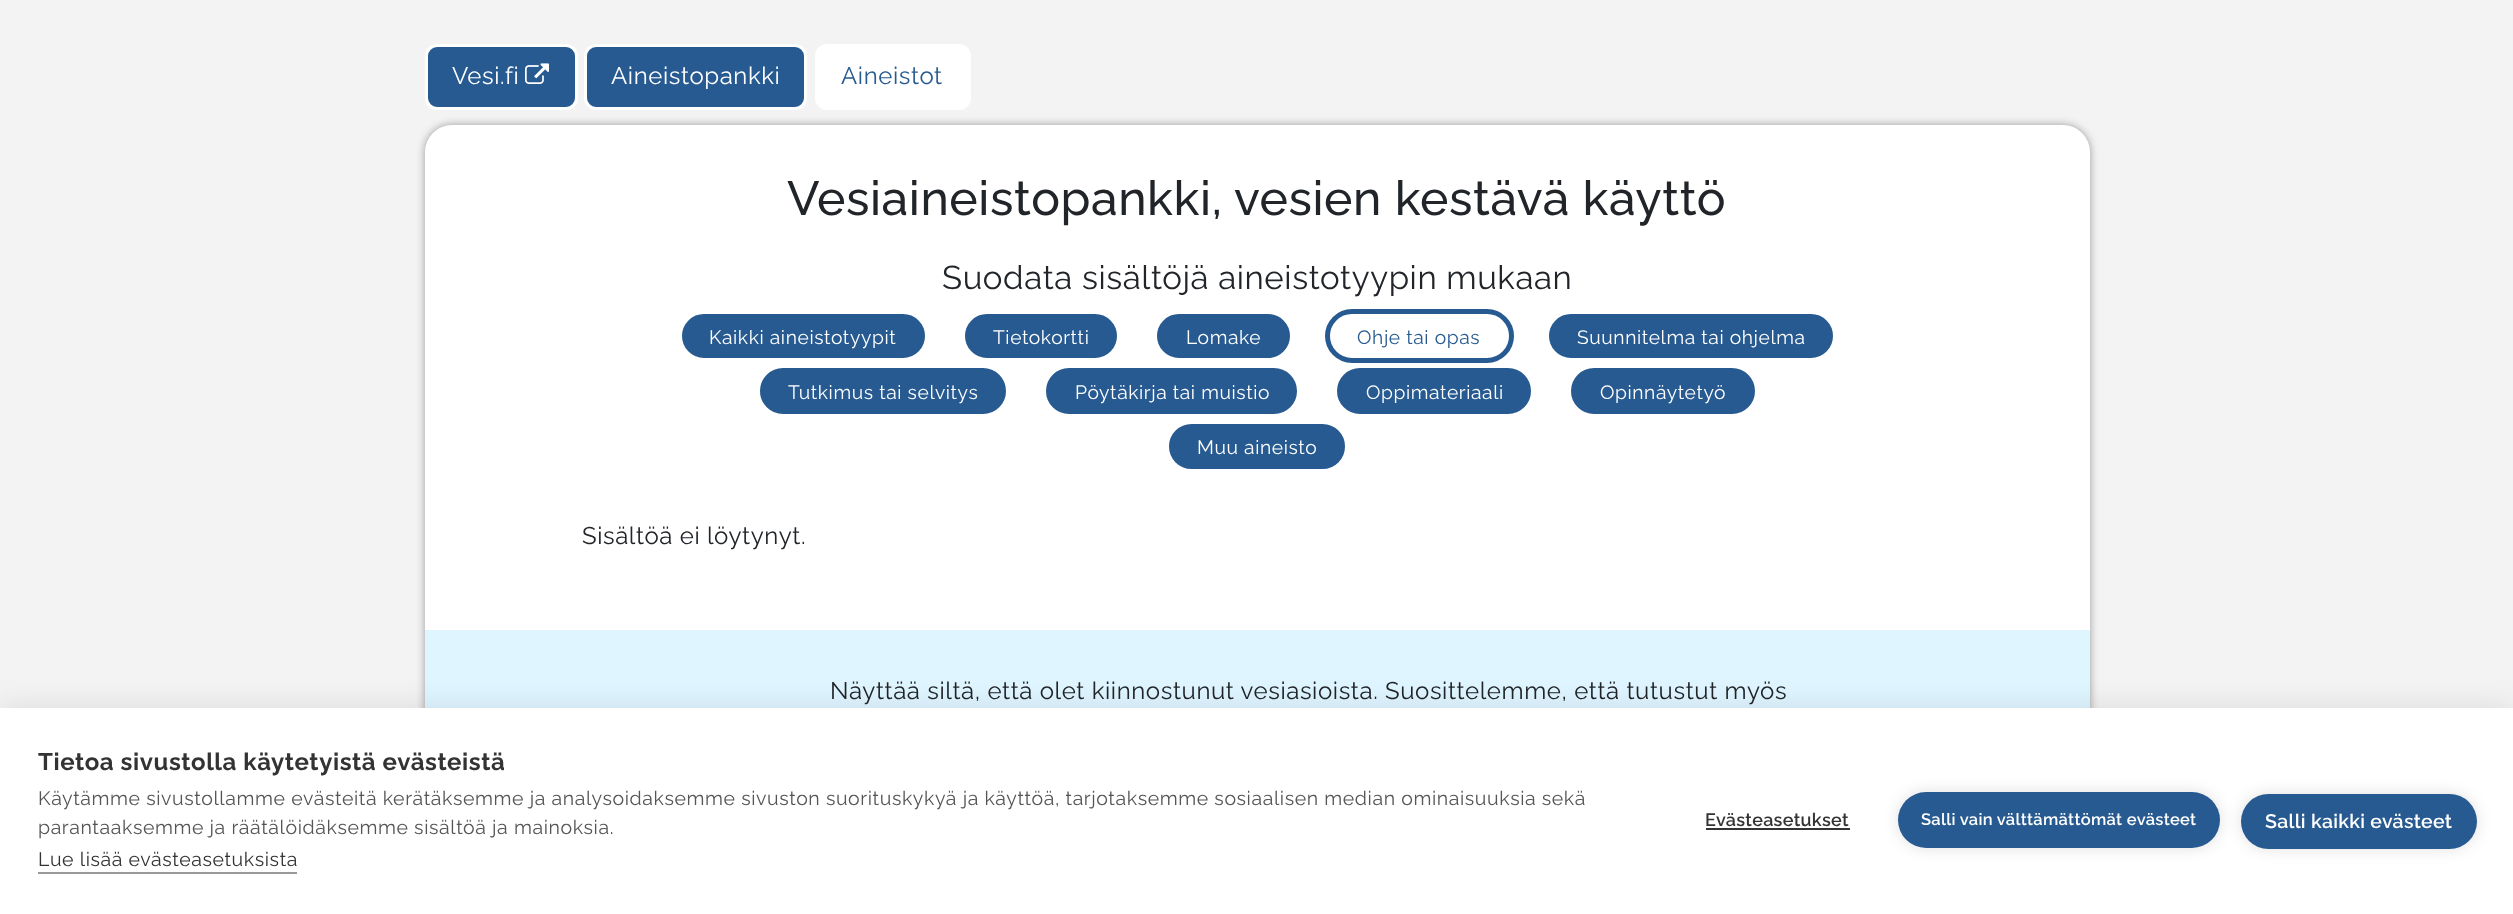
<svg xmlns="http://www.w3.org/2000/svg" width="2513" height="914">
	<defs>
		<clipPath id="clip1"><rect x="38" y="746" width="1581" height="132" /></clipPath>
	</defs>
	<rect width="100%" height="100%" fill="#F3F3F3" />
	<rect x="426.5" y="45.5" width="150" height="63" rx="10.5" fill="#265A90" stroke="#FFFFFF" stroke-width="3" />
	<text x="452" y="84" font-family="Raleway" font-size="24" letter-spacing="0.6" fill="#FFFFFF">Vesi.fi</text>
	<image x="525" y="63" width="24" height="21" href="assets/img1.png" />
	<rect x="585.5" y="45.5" width="220" height="63" rx="10.5" fill="#265A90" stroke="#FFFFFF" stroke-width="3" />
	<text x="611" y="84" font-family="Raleway" font-size="24" letter-spacing="0.6" fill="#FFFFFF">Aineistopankki</text>
	<rect x="816.5" y="45.5" width="153" height="63" rx="10.5" fill="#FFFFFF" stroke="#FFFFFF" stroke-width="3" />
	<text x="841" y="84" font-family="Raleway" font-size="24" letter-spacing="0.6" fill="#265A90">Aineistot</text>
	<rect x="425" y="125" width="1665" height="700" rx="27" fill="#000000" fill-opacity="0.36" filter="blur(4px)" />
	<rect x="425" y="125" width="1665" height="700" rx="27" fill="#FFFFFF" />
	<text x="787" y="215" font-family="Raleway" font-size="48" font-weight="500" letter-spacing="0.6" fill="#212529">Vesiaineistopankki, vesien kestävä käyttö</text>
	<text x="942" y="289" font-family="Raleway" font-size="33" letter-spacing="0.6" fill="#212529">Suodata sisältöjä aineistotyypin mukaan</text>
	<rect x="679.5" y="311.5" width="248" height="49" rx="24.5" fill="#275A90" stroke="#FFFFFF" stroke-width="5" />
	<text x="709" y="344" font-family="Raleway" font-size="19.25" letter-spacing="0.6" fill="#FFFFFF">Kaikki aineistotyypit</text>
	<rect x="962.5" y="311.5" width="157" height="49" rx="24.5" fill="#275A90" stroke="#FFFFFF" stroke-width="5" />
	<text x="993" y="344" font-family="Raleway" font-size="19.25" letter-spacing="0.6" fill="#FFFFFF">Tietokortti</text>
	<rect x="1154.5" y="311.5" width="138" height="49" rx="24.5" fill="#275A90" stroke="#FFFFFF" stroke-width="5" />
	<text x="1186" y="344" font-family="Raleway" font-size="19.25" letter-spacing="0.6" fill="#FFFFFF">Lomake</text>
	<rect x="1327.5" y="311.5" width="184" height="49" rx="24.5" fill="none" stroke="#275A90" stroke-width="5" />
	<text x="1357" y="344" font-family="Raleway" font-size="19.25" letter-spacing="0.6" fill="#265A90">Ohje tai opas</text>
	<rect x="1546.5" y="311.5" width="289" height="49" rx="24.5" fill="#275A90" stroke="#FFFFFF" stroke-width="5" />
	<text x="1577" y="344" font-family="Raleway" font-size="19.25" letter-spacing="0.6" fill="#FFFFFF">Suunnitelma tai ohjelma</text>
	<rect x="757.5" y="365.5" width="251" height="51" rx="25.5" fill="#275A90" stroke="#FFFFFF" stroke-width="5" />
	<text x="788" y="399" font-family="Raleway" font-size="19.25" letter-spacing="0.6" fill="#FFFFFF">Tutkimus tai selvitys</text>
	<rect x="1043.5" y="365.5" width="256" height="51" rx="25.5" fill="#275A90" stroke="#FFFFFF" stroke-width="5" />
	<text x="1075" y="399" font-family="Raleway" font-size="19.25" letter-spacing="0.6" fill="#FFFFFF">Pöytäkirja tai muistio</text>
	<rect x="1334.5" y="365.5" width="199" height="51" rx="25.5" fill="#275A90" stroke="#FFFFFF" stroke-width="5" />
	<text x="1366" y="399" font-family="Raleway" font-size="19.25" letter-spacing="0.6" fill="#FFFFFF">Oppimateriaali</text>
	<rect x="1568.5" y="365.5" width="189" height="51" rx="25.5" fill="#275A90" stroke="#FFFFFF" stroke-width="5" />
	<text x="1600" y="399" font-family="Raleway" font-size="19.25" letter-spacing="0.6" fill="#FFFFFF">Opinnäytetyö</text>
	<rect x="1166.5" y="421.5" width="181" height="50" rx="25" fill="#275A90" stroke="#FFFFFF" stroke-width="5" />
	<text x="1197" y="454" font-family="Raleway" font-size="19.25" letter-spacing="0.6" fill="#FFFFFF">Muu aineisto</text>
	<text x="582" y="544" font-family="Raleway" font-size="24" letter-spacing="0.6" fill="#212529">Sisältöä ei löytynyt.</text>
	<rect x="425" y="630" width="1665" height="78" fill="#DFF5FF" />
	<text x="830" y="699" font-family="Raleway" font-size="24" letter-spacing="0.6" fill="#212529">Näyttää siltä, että olet kiinnostunut vesiasioista. Suosittelemme, että tutustut myös</text>
	<rect x="0" y="708" width="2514" height="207" fill="#000000" fill-opacity="0.1" filter="blur(15px)" />
	<rect x="0" y="708" width="2513" height="206" fill="#FFFFFF" />
	<g clip-path="url(#clip1)">
		<text x="38" y="770" font-family="Raleway" font-size="24" font-weight="700" letter-spacing="0.6" fill="#333333">Tietoa sivustolla käytetyistä evästeistä</text>
	</g>
	<g font-family="Raleway" font-size="19.5" letter-spacing="0.6" fill="#555555">
		<text x="38" y="805">Käytämme sivustollamme evästeitä kerätäksemme ja analysoidaksemme sivuston suorituskykyä ja käyttöä, tarjotaksemme sosiaalisen median ominaisuuksia sekä</text>
		<text x="38" y="834">parantaaksemme ja räätälöidäksemme sisältöä ja mainoksia.</text>
	</g>
	<text x="38" y="866" font-family="Raleway" font-size="19.5" letter-spacing="0.6" fill="#333333">Lue lisää evästeasetuksista</text>
	<rect x="38" y="872" width="259" height="2" fill="#999999" />
	<text x="1705" y="826" font-family="Raleway" font-size="18" font-weight="600" letter-spacing="0.3" fill="#333333">Evästeasetukset</text>
	<rect x="1706" y="828" width="144" height="2" fill="#333333" />
	<rect x="1898" y="792" width="322" height="56" rx="28" fill="#000000" fill-opacity="0.12" filter="blur(7.5px)" />
	<rect x="1898" y="792" width="322" height="56" rx="28" fill="#275A90" />
	<text x="1921" y="825" font-family="Raleway" font-size="16.5" font-weight="600" letter-spacing="0.3" fill="#FFFFFF">Salli vain välttämättömät evästeet</text>
	<rect x="2241" y="794" width="236" height="55" rx="27.5" fill="#000000" fill-opacity="0.12" filter="blur(7.5px)" />
	<rect x="2241" y="794" width="236" height="55" rx="27.5" fill="#275A90" />
	<text x="2265" y="828" font-family="Raleway" font-size="19.5" font-weight="600" letter-spacing="0.3" fill="#FFFFFF">Salli kaikki evästeet</text>
</svg>
